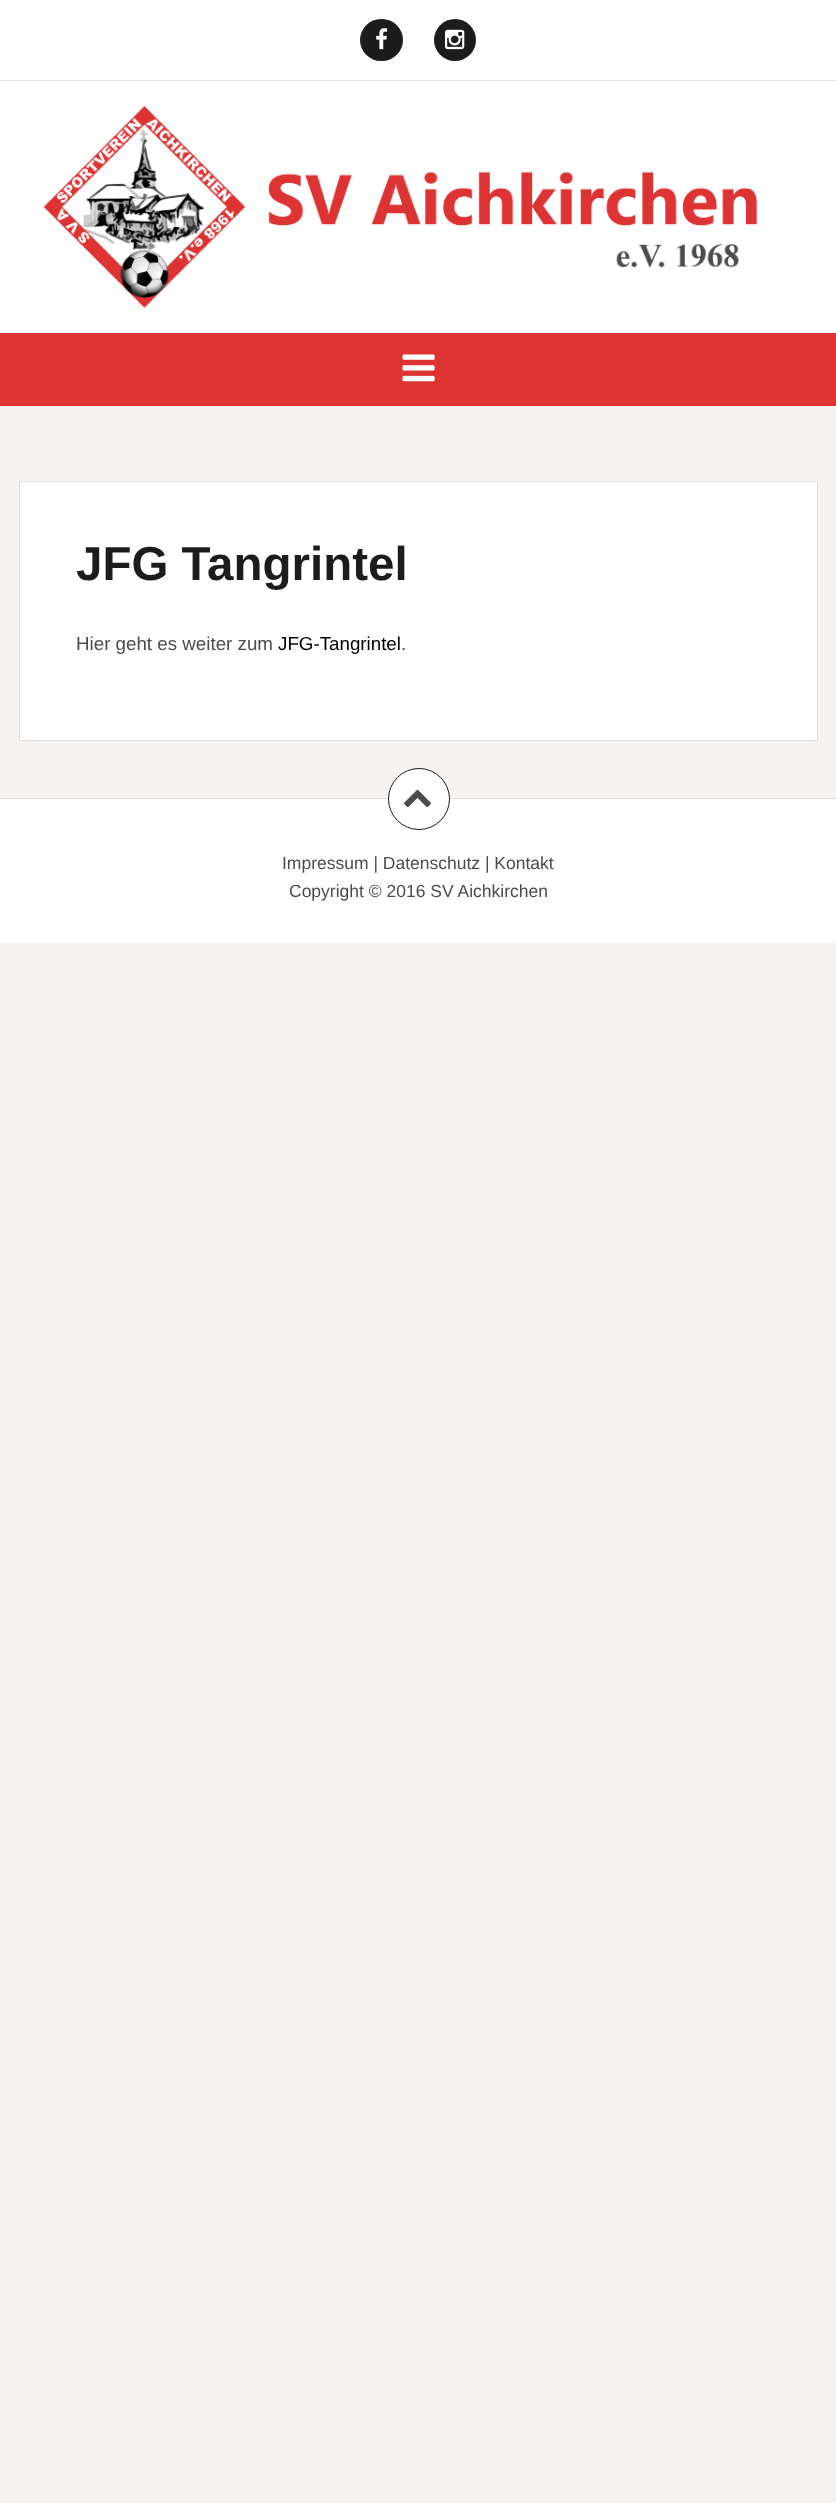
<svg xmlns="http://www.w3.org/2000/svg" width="836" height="2503">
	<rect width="100%" height="100%" fill="#F7F3F0" />
	<rect x="0" y="0" width="836" height="333" fill="#FFFFFF" />
	<rect x="0" y="80" width="836" height="1" fill="#E0E0E0" />
	<rect x="360" y="19" width="43" height="42" rx="21" fill="#1C1C1C" />
	<image x="376" y="28" width="12" height="22" href="assets/img1.png" />
	<circle cx="455" cy="40" r="21" fill="#1C1C1C" />
	<image x="445" y="29" width="20" height="21" href="assets/img2.png" />
	<image x="43" y="106" width="715" height="202" href="assets/img3.png" />
	<rect x="0" y="333" width="836" height="73" fill="#DD3333" />
	<image x="402" y="354" width="33" height="28" href="assets/img4.png" />
	<rect x="19.5" y="481.5" width="798" height="259" fill="#FFFFFF" stroke="#E0E0E0" />
	<text x="76" y="580" font-family="Liberation Sans" font-size="47.5" font-weight="700" fill="#1C1C1C">JFG Tangrintel</text>
	<text x="76" y="650" font-family="Liberation Sans" font-size="18.75" fill="#4C4C4C">Hier geht es weiter zum</text>
	<text x="278" y="650" font-family="Liberation Sans" font-size="18.75" fill="#000000">JFG-Tangrintel</text>
	<text x="401" y="650" font-family="Liberation Sans" font-size="18.75" fill="#4C4C4C">.</text>
	<rect x="0" y="799" width="836" height="144" fill="#FFFFFF" />
	<rect x="0" y="798" width="836" height="1" fill="#E0E0E0" />
	<circle cx="419" cy="799" r="30.5" fill="#FFFFFF" stroke="#1C1C1C" />
	<image x="404" y="789" width="27" height="19" href="assets/img5.png" />
	<g font-family="Liberation Sans" font-size="17.5" fill="#4C4C4C">
		<text x="282" y="869">Impressum | Datenschutz | Kontakt</text>
		<text x="289" y="897">Copyright © 2016 SV Aichkirchen</text>
	</g>
</svg>
